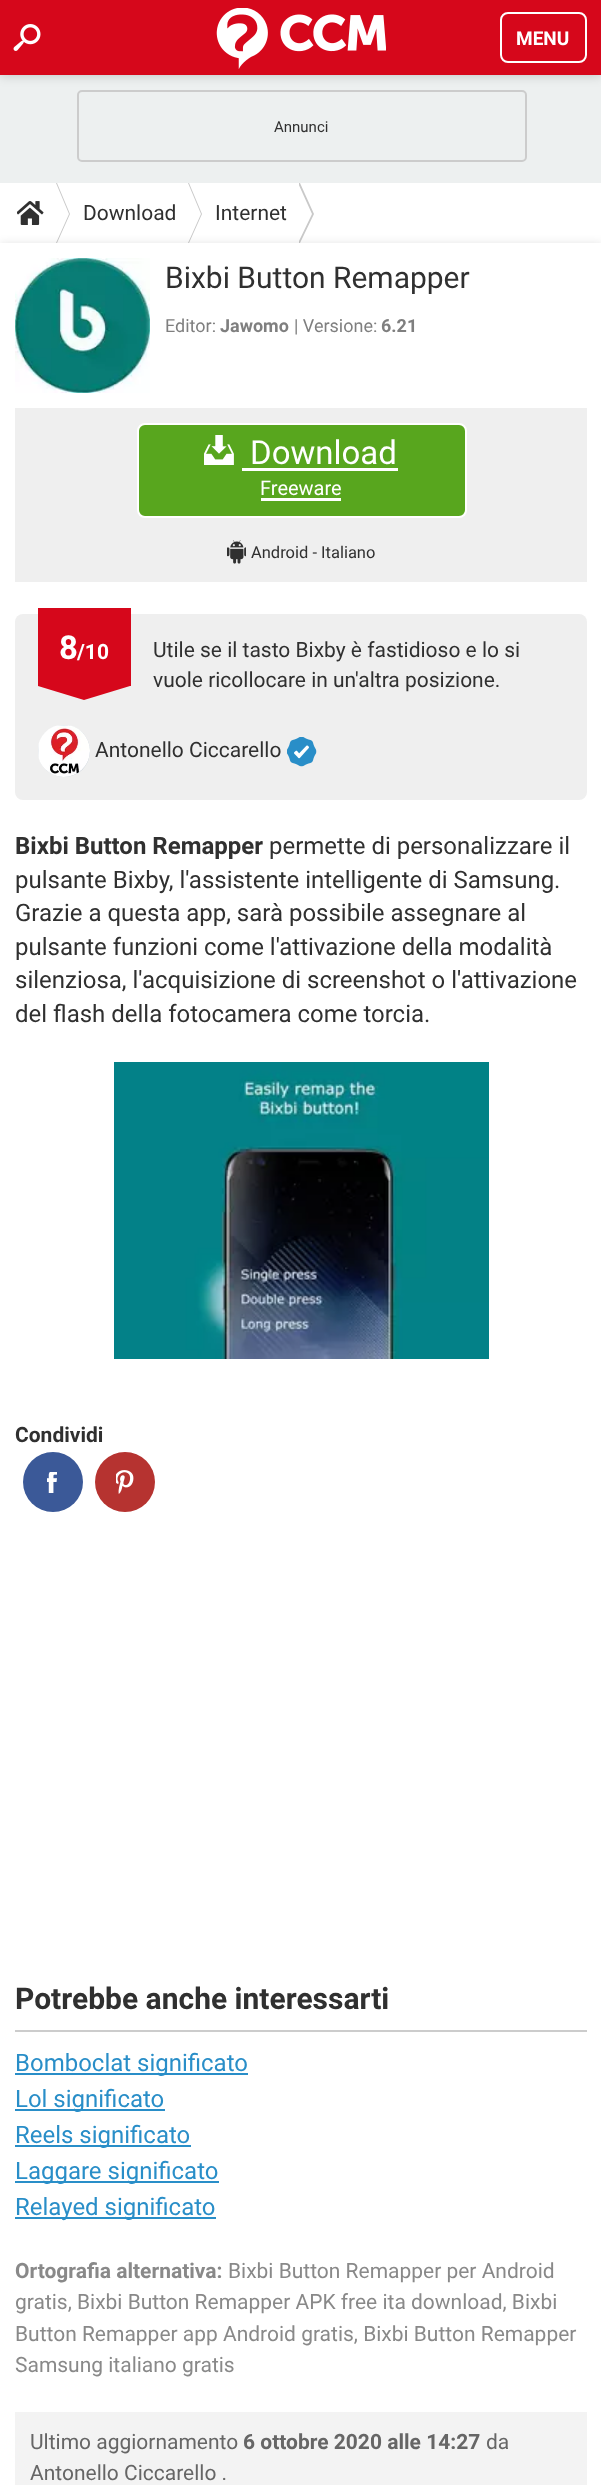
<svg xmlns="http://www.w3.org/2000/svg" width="601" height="2485">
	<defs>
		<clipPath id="clip1"><rect x="299" y="183" width="15" height="60" /></clipPath>
	</defs>
	<rect width="100%" height="100%" fill="#EDF0F0" />
	<rect x="78" y="91" width="448" height="70" rx="4" fill="none" stroke="#CCCCCC" stroke-width="2" />
	<rect x="0" y="0" width="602" height="75" fill="#000000" fill-opacity="0.2" filter="blur(6px)" />
	<rect x="0" y="0" width="601" height="75" fill="#D6071B" />
	<image x="13" y="24" width="28" height="27" href="assets/img1.png" />
	<image x="216" y="8" width="170" height="61" href="assets/img2.png" />
	<rect x="501" y="13" width="85" height="49" rx="7" fill="none" stroke="#FFFFFF" stroke-width="2" />
	<text x="516" y="45" font-family="Roboto" font-size="19" font-weight="700" fill="#FFFFFF">MENU</text>
	<text x="274" y="132" font-family="Roboto" font-size="15" fill="#303030">Annunci</text>
	<rect x="0" y="183" width="601" height="60" fill="#FFFFFF" />
	<image x="17" y="201" width="27" height="24" href="assets/img3.png" />
	<path d="M56 183H57L70 214L57 243H56L69 214Z" fill="#C9C9C9" fill-rule="evenodd" />
	<text x="83" y="220" font-family="Roboto" font-size="21" fill="#303030">Download</text>
	<path d="M188 183H189L202 214L189 243H188L201 214Z" fill="#C9C9C9" fill-rule="evenodd" />
	<text x="215" y="220" font-family="Roboto" font-size="21" fill="#303030">Internet</text>
	<g clip-path="url(#clip1)">
		<path d="M298 183H300L314 214L300 243H298L312 214Z" fill="#C9C9C9" fill-rule="evenodd" />
	</g>
	<rect x="0" y="243" width="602" height="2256" fill="#000000" fill-opacity="0.1" filter="blur(4.5px)" />
	<rect x="0" y="243" width="601" height="2242" fill="#FFFFFF" />
	<image x="15" y="258" width="135" height="135" href="assets/img4.png" />
	<text x="165" y="288" font-family="Roboto" font-size="30" fill="#303030">Bixbi Button Remapper</text>
	<text x="165" y="332" font-family="Roboto" font-size="18" fill="#7F7F7F">Editor:</text>
	<text x="220" y="332" font-family="Roboto" font-size="18" font-weight="700" fill="#7F7F7F">Jawomo</text>
	<text x="294" y="332" font-family="Roboto" font-size="18" fill="#7F7F7F">| Versione:</text>
	<text x="381" y="332" font-family="Roboto" font-size="18" font-weight="700" fill="#7F7F7F">6.21</text>
	<rect x="15" y="408" width="572" height="174" fill="#EFEFEF" />
	<rect x="138" y="424" width="328" height="93" rx="7" fill="#58A61E" stroke="#FFFFFF" stroke-width="2" />
	<image x="204" y="435" width="30" height="30" href="assets/img5.png" />
	<text x="250" y="464" font-family="Roboto" font-size="33" fill="#FFFFFF">Download</text>
	<rect x="242" y="468" width="156" height="3" fill="#FFFFFF" />
	<text x="260" y="495" font-family="Roboto" font-size="20" fill="#FFFFFF">Freeware</text>
	<rect x="261" y="498" width="80" height="3" fill="#FFFFFF" />
	<image x="227" y="540" width="19" height="24" href="assets/img6.png" />
	<text x="251" y="558" font-family="Roboto" font-size="16.5" fill="#303030">Android - Italiano</text>
	<rect x="15" y="614" width="572" height="186" rx="8" fill="#EFEFEF" />
	<rect x="38" y="608" width="93" height="78" fill="#D6071B" />
	<text x="59" y="659" font-family="Roboto" font-size="33" font-weight="700" fill="#FFFFFF">8</text>
	<text x="77" y="659" font-family="Roboto" font-size="21" font-weight="700" fill="#FFFFFF">/10</text>
	<path d="M38 686H130L84 700Z" fill="#D6071B" />
	<g font-family="Roboto" font-size="21" fill="#303030">
		<text x="153" y="657">Utile se il tasto Bixby è fastidioso e lo si</text>
		<text x="153" y="687">vuole ricollocare in un'altra posizione.</text>
	</g>
	<circle cx="64" cy="751" r="26" fill="#B0BECB" />
	<image x="38" y="725" width="52" height="52" href="assets/img7.png" />
	<text x="95" y="757" font-family="Roboto" font-size="21" fill="#303030">Antonello Ciccarello</text>
	<image x="287" y="737" width="30" height="30" href="assets/img8.png" />
	<text x="15" y="854" font-family="Roboto" font-size="24" font-weight="700" fill="#303030">Bixbi Button Remapper</text>
	<g font-family="Roboto" font-size="24" fill="#303030">
		<text x="269" y="854">permette di personalizzare il</text>
		<text x="15" y="888">pulsante Bixby, l'assistente intelligente di Samsung.</text>
		<text x="15" y="921">Grazie a questa app, sarà possibile assegnare al</text>
		<text x="15" y="955">pulsante funzioni come l'attivazione della modalità</text>
		<text x="15" y="988">silenziosa, l'acquisizione di screenshot o l'attivazione</text>
		<text x="15" y="1022">del flash della fotocamera come torcia.</text>
	</g>
	<image x="114" y="1062" width="375" height="297" href="assets/img9.png" />
	<text x="15" y="1442" font-family="Roboto" font-size="21" font-weight="700" fill="#303030">Condividi</text>
	<circle cx="53" cy="1482" r="30" fill="#3B5998" />
	<image x="47" y="1472" width="10" height="21" href="assets/img10.png" />
	<circle cx="125" cy="1482" r="30" fill="#B63330" />
	<image x="116" y="1470" width="18" height="24" href="assets/img11.png" />
	<rect x="15" y="2030" width="572" height="2" fill="#CCCCCC" />
	<text x="15" y="2009" font-family="Roboto" font-size="30" font-weight="700" fill="#303030">Potrebbe anche interessarti</text>
	<rect x="15" y="2073" width="233" height="2" fill="#298EC8" />
	<text x="15" y="2071" font-family="Roboto" font-size="24" fill="#298EC8">Bomboclat significato</text>
	<rect x="15" y="2109" width="150" height="2" fill="#298EC8" />
	<text x="15" y="2107" font-family="Roboto" font-size="24" fill="#298EC8">Lol significato</text>
	<rect x="15" y="2145" width="176" height="2" fill="#298EC8" />
	<text x="15" y="2143" font-family="Roboto" font-size="24" fill="#298EC8">Reels significato</text>
	<rect x="15" y="2181" width="204" height="2" fill="#298EC8" />
	<text x="15" y="2179" font-family="Roboto" font-size="24" fill="#298EC8">Laggare significato</text>
	<rect x="15" y="2217" width="201" height="2" fill="#298EC8" />
	<text x="15" y="2215" font-family="Roboto" font-size="24" fill="#298EC8">Relayed significato</text>
	<text x="15" y="2278" font-family="Roboto" font-size="21" font-weight="700" fill="#898989">Ortografia alternativa:</text>
	<g font-family="Roboto" font-size="21" fill="#898989">
		<text x="228" y="2278">Bixbi Button Remapper per Android</text>
		<text x="15" y="2309">gratis, Bixbi Button Remapper APK free ita download, Bixbi</text>
		<text x="15" y="2341">Button Remapper app Android gratis, Bixbi Button Remapper</text>
		<text x="15" y="2372">Samsung italiano gratis</text>
	</g>
	<rect x="15" y="2412" width="572" height="73" fill="#F3F3F3" />
	<text x="30" y="2449" font-family="Roboto" font-size="21" fill="#666666">Ultimo aggiornamento</text>
	<text x="243" y="2449" font-family="Roboto" font-size="21" font-weight="700" fill="#666666">6 ottobre 2020 alle 14:27</text>
	<g font-family="Roboto" font-size="21" fill="#666666">
		<text x="486" y="2449">da</text>
		<text x="30" y="2480">Antonello Ciccarello .</text>
	</g>
</svg>
